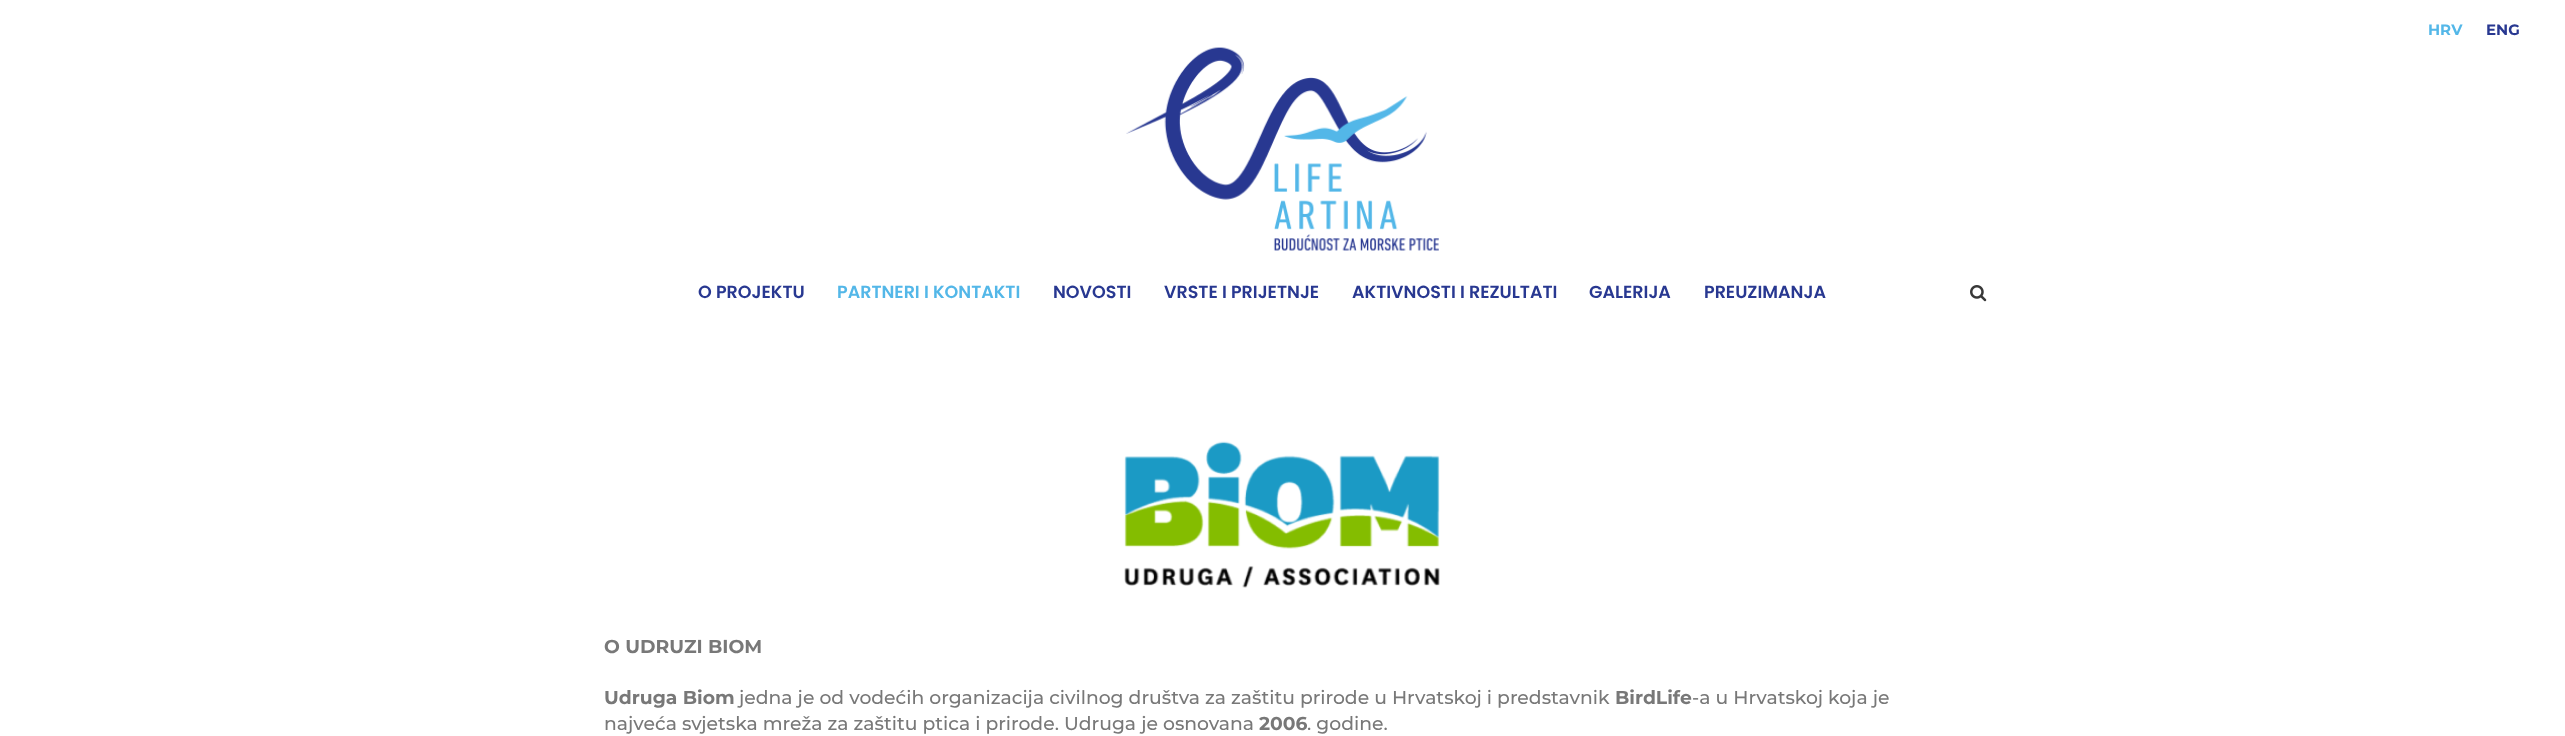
<svg xmlns="http://www.w3.org/2000/svg" width="2565" height="736">
	<rect width="100%" height="100%" fill="#FFFFFF" />
	<text x="2428" y="35" font-family="Montserrat" font-size="15" font-weight="700" fill="#53B7E8">HRV</text>
	<text x="2486" y="35" font-family="Montserrat" font-size="15" font-weight="700" fill="#283891">ENG</text>
	<image x="1126" y="47" width="313" height="204" href="assets/img1.png" />
	<text x="698" y="298" font-family="Poppins" font-size="17.5" font-weight="600" fill="#283891">O PROJEKTU</text>
	<text x="837" y="298" font-family="Poppins" font-size="17.5" font-weight="600" fill="#53B7E8">PARTNERI I KONTAKTI</text>
	<g font-family="Poppins" font-size="17.5" font-weight="600" fill="#283891">
		<text x="1053" y="298">NOVOSTI</text>
		<text x="1164" y="298">VRSTE I PRIJETNJE</text>
		<text x="1352" y="298">AKTIVNOSTI I REZULTATI</text>
		<text x="1589" y="298">GALERIJA</text>
		<text x="1704" y="298">PREUZIMANJA</text>
	</g>
	<image x="1970" y="285" width="17" height="17" href="assets/img2.png" />
	<image x="1124" y="441" width="316" height="147" href="assets/img3.png" />
	<g font-family="Montserrat" font-size="18.75" font-weight="700" fill="#787878">
		<text x="604" y="653">O UDRUZI BIOM</text>
		<text x="604" y="704">Udruga Biom</text>
	</g>
	<text x="739" y="704" font-family="Montserrat" font-size="18.75" font-weight="500" fill="#787878">jedna je od vodećih organizacija civilnog društva za zaštitu prirode u Hrvatskoj i predstavnik</text>
	<text x="1615" y="704" font-family="Montserrat" font-size="18.75" font-weight="700" fill="#787878">BirdLife</text>
	<g font-family="Montserrat" font-size="18.75" font-weight="500" fill="#787878">
		<text x="1692" y="704">-a u Hrvatskoj koja je</text>
		<text x="604" y="730">najveća svjetska mreža za zaštitu ptica i prirode. Udruga je osnovana</text>
	</g>
	<text x="1259" y="730" font-family="Montserrat" font-size="18.75" font-weight="700" fill="#787878">2006</text>
	<text x="1307" y="730" font-family="Montserrat" font-size="18.75" font-weight="500" fill="#787878">. godine.</text>
</svg>
